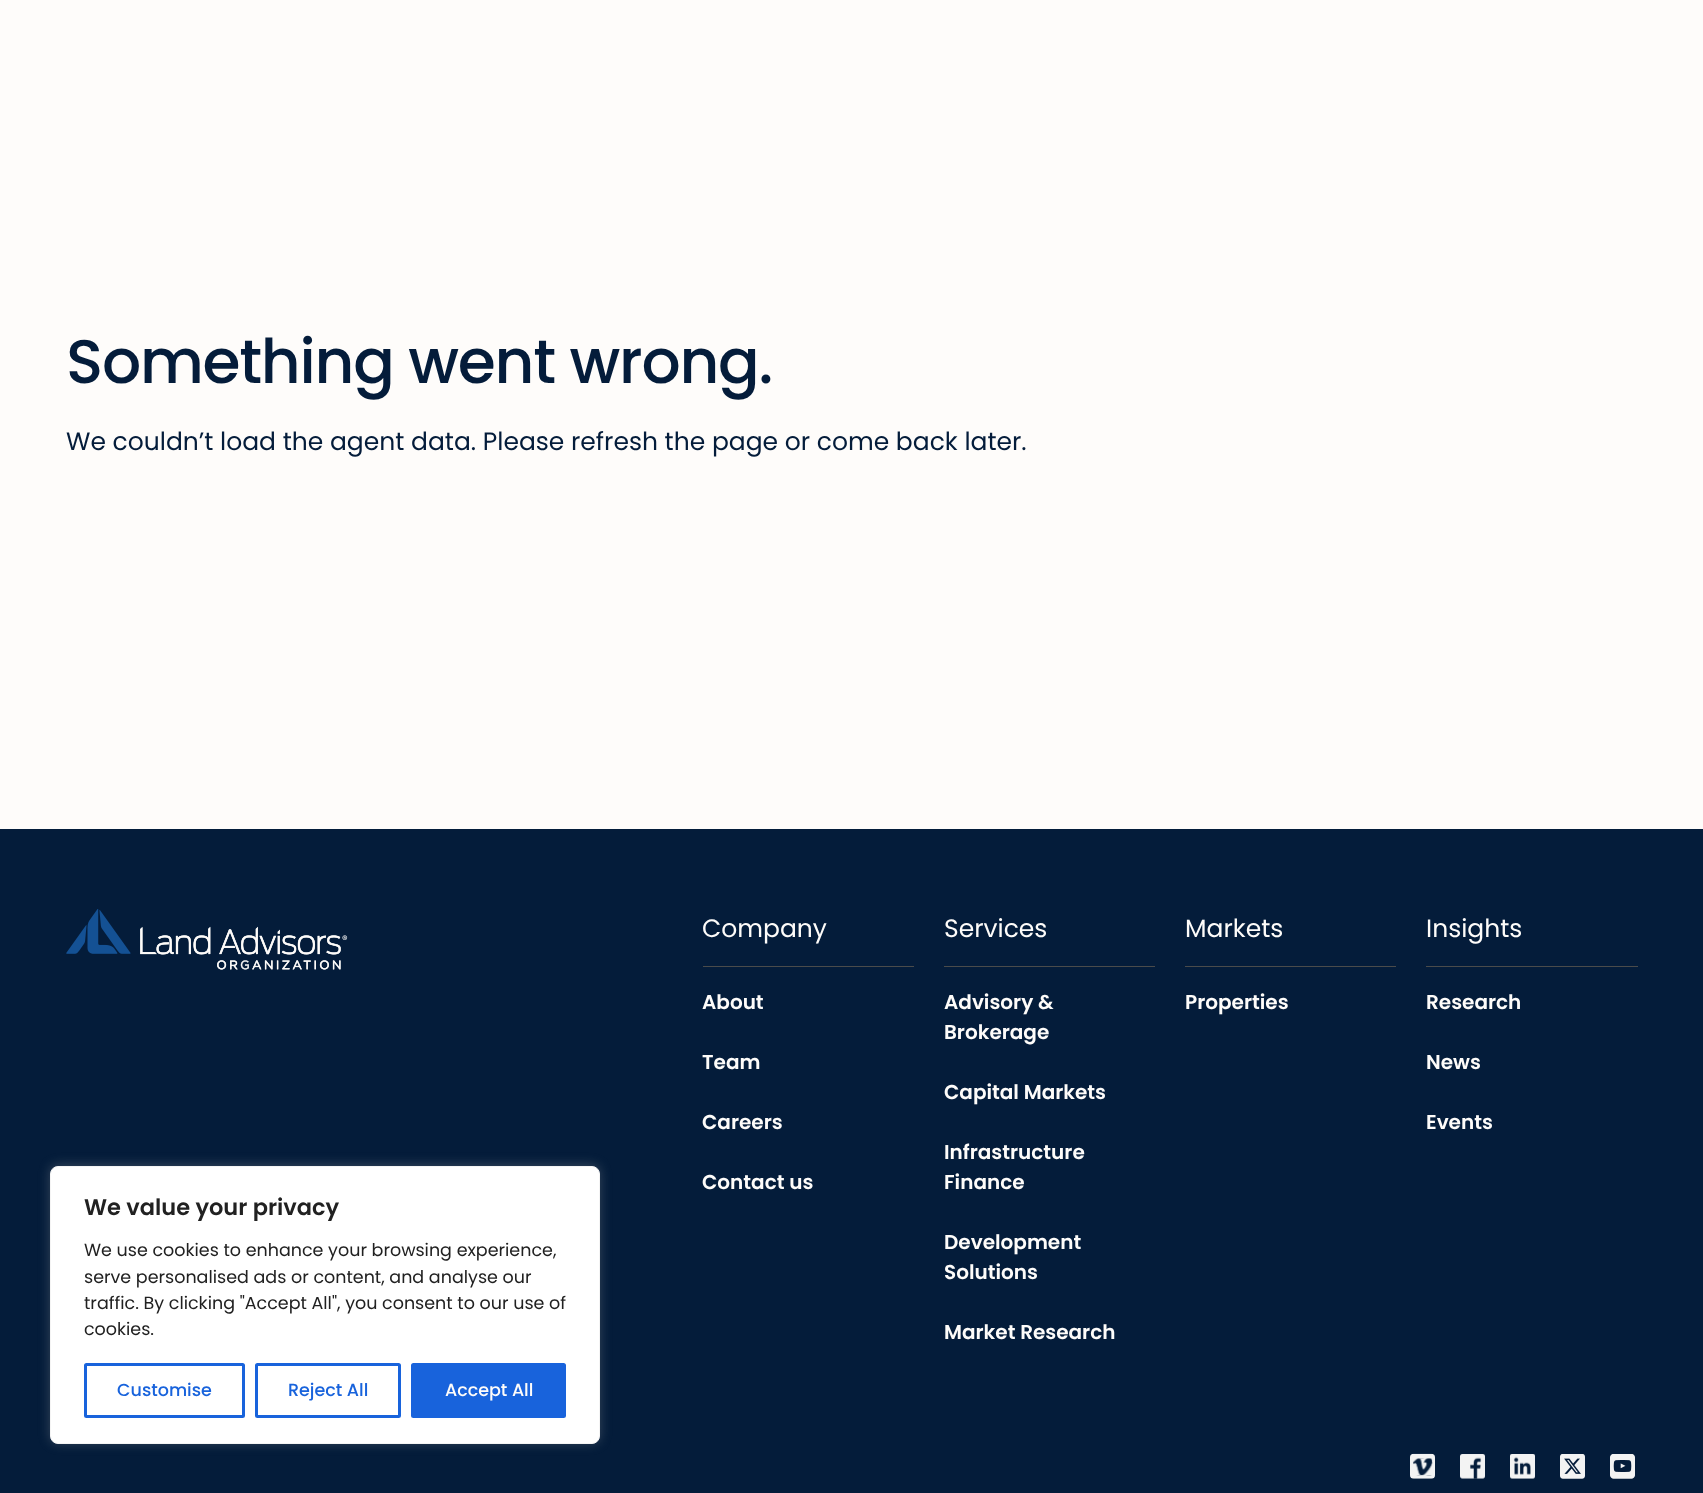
<svg xmlns="http://www.w3.org/2000/svg" width="1703" height="1493">
	<rect width="100%" height="100%" fill="#FEFCFA" />
	<text x="66" y="383" font-family="Poppins" font-size="61.5" font-weight="500" letter-spacing="-1.25" fill="#041C3A">Something went wrong.</text>
	<text x="66" y="450" font-family="Poppins" font-size="25" fill="#041C3A">We couldn’t load the agent data. Please refresh the page or come back later.</text>
	<rect x="0" y="829" width="1703" height="664" fill="#041C3A" />
	<rect x="50" y="1165" width="550" height="278" rx="8" fill="#ACABAB" fill-opacity="0.3" filter="blur(6px)" />
	<rect x="50.5" y="1166.5" width="549" height="277" rx="7.5" fill="#FFFFFF" stroke="#F4F4F4" />
	<text x="84" y="1215" font-family="Poppins" font-size="22.5" font-weight="600" fill="#212121">We value your privacy</text>
	<g font-family="Poppins" font-size="17.5" fill="#212121">
		<text x="84" y="1256">We use cookies to enhance your browsing experience,</text>
		<text x="84" y="1283">serve personalised ads or content, and analyse our</text>
		<text x="84" y="1309">traffic. By clicking "Accept All", you consent to our use of</text>
		<text x="84" y="1335">cookies.</text>
	</g>
	<rect x="85.5" y="1364.5" width="158" height="52" rx="1" fill="none" stroke="#1863DC" stroke-width="3" />
	<text x="117" y="1396" font-family="Poppins" font-size="17.5" font-weight="500" fill="#1863DC">Customise</text>
	<rect x="256.5" y="1364.5" width="143" height="52" rx="1" fill="none" stroke="#1863DC" stroke-width="3" />
	<text x="288" y="1396" font-family="Poppins" font-size="17.5" font-weight="500" fill="#1863DC">Reject All</text>
	<rect x="412.5" y="1364.5" width="152" height="52" rx="1" fill="#1863DC" stroke="#1863DC" stroke-width="3" />
	<text x="445" y="1396" font-family="Poppins" font-size="17.5" font-weight="500" fill="#FEFCFA">Accept All</text>
	<image x="66" y="909" width="282" height="61" href="assets/img1.png" />
	<rect x="703" y="966" width="211" height="1" fill="#4A4B4B" />
	<text x="702" y="937" font-family="Poppins" font-size="25" fill="#FEFCFA">Company</text>
	<g font-family="Poppins" font-size="20" font-weight="600" fill="#FEFCFA">
		<text x="702" y="1009">About</text>
		<text x="702" y="1069">Team</text>
		<text x="702" y="1129">Careers</text>
		<text x="702" y="1189">Contact us</text>
	</g>
	<rect x="944" y="966" width="211" height="1" fill="#4A4B4B" />
	<text x="944" y="937" font-family="Poppins" font-size="25" fill="#FEFCFA">Services</text>
	<g font-family="Poppins" font-size="20" font-weight="600" fill="#FEFCFA">
		<text x="944" y="1009">Advisory &amp;</text>
		<text x="944" y="1039">Brokerage</text>
		<text x="944" y="1099">Capital Markets</text>
		<text x="944" y="1159">Infrastructure</text>
		<text x="944" y="1189">Finance</text>
		<text x="944" y="1249">Development</text>
		<text x="944" y="1279">Solutions</text>
		<text x="944" y="1339">Market Research</text>
	</g>
	<rect x="1185" y="966" width="211" height="1" fill="#4A4B4B" />
	<text x="1185" y="937" font-family="Poppins" font-size="25" fill="#FEFCFA">Markets</text>
	<text x="1185" y="1009" font-family="Poppins" font-size="20" font-weight="600" fill="#FEFCFA">Properties</text>
	<rect x="1426" y="966" width="212" height="1" fill="#4A4B4B" />
	<text x="1426" y="937" font-family="Poppins" font-size="25" fill="#FEFCFA">Insights</text>
	<g font-family="Poppins" font-size="20" font-weight="600" fill="#FEFCFA">
		<text x="1426" y="1009">Research</text>
		<text x="1426" y="1069">News</text>
		<text x="1426" y="1129">Events</text>
	</g>
	<image x="1410" y="1453" width="25" height="26" href="assets/img2.png" />
	<image x="1460" y="1454" width="25" height="25" href="assets/img3.png" />
	<image x="1510" y="1454" width="25" height="25" href="assets/img4.png" />
	<image x="1560" y="1454" width="25" height="25" href="assets/img5.png" />
	<image x="1610" y="1454" width="25" height="25" href="assets/img6.png" />
</svg>
